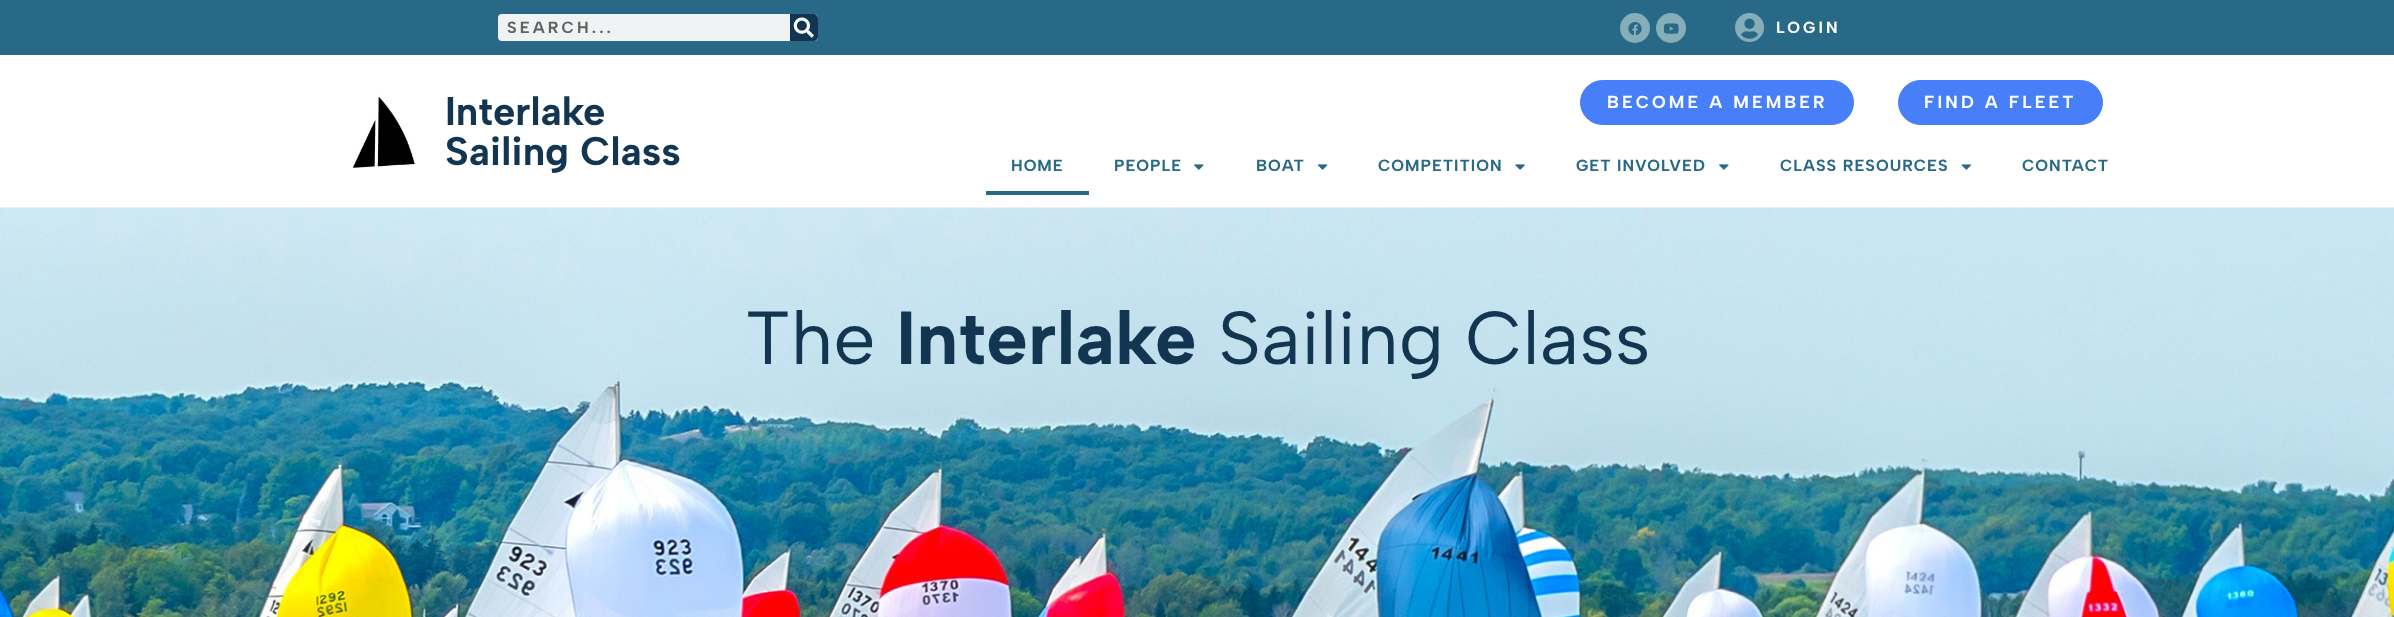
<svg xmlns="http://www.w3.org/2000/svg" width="2394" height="617">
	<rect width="100%" height="100%" fill="#FFFFFF" />
	<rect x="0" y="0" width="2394" height="55" fill="#276986" />
	<rect x="498" y="14" width="320" height="27" rx="4" fill="#F1F2F3" />
	<text x="507" y="33" font-family="Albert Sans" font-size="16.25" font-weight="700" letter-spacing="3.1" fill="#606161">SEARCH...</text>
	<path d="M790 14H814C816 14 818 16 818 18V37C818 39 816 41 814 41H790Z" fill="#123651" />
	<image x="793" y="17" width="21" height="21" href="assets/img1.png" />
	<circle cx="1635" cy="28" r="15" fill="#86AEB9" />
	<image x="1628" y="22" width="14" height="14" href="assets/img2.png" />
	<circle cx="1671" cy="28" r="15" fill="#86AEB9" />
	<image x="1663" y="23" width="16" height="11" href="assets/img3.png" />
	<image x="1735" y="13" width="29" height="29" href="assets/img4.png" />
	<text x="1776" y="33" font-family="Albert Sans" font-size="16.25" font-weight="700" letter-spacing="3.1" fill="#FFFFFF">LOGIN</text>
	<image x="351" y="95" width="64" height="73" href="assets/img5.png" />
	<g font-family="Albert Sans" font-size="40" font-weight="700" fill="#123651">
		<text x="445" y="125">Interlake</text>
		<text x="445" y="165">Sailing Class</text>
	</g>
	<rect x="1580.5" y="80.5" width="273" height="44" rx="22" fill="#467FF7" stroke="#467FF7" />
	<text x="1607" y="108" font-family="Albert Sans" font-size="17.5" font-weight="700" letter-spacing="3.1" fill="#FFFFFF">BECOME A MEMBER</text>
	<rect x="1898.5" y="80.5" width="204" height="44" rx="22" fill="#467FF7" stroke="#467FF7" />
	<text x="1924" y="108" font-family="Albert Sans" font-size="17.5" font-weight="700" letter-spacing="3.1" fill="#FFFFFF">FIND A FLEET</text>
	<text x="1011" y="171" font-family="Albert Sans" font-size="16.25" font-weight="700" letter-spacing="1" fill="#276986">HOME</text>
	<rect x="986" y="191" width="103" height="4" fill="#276986" />
	<text x="1114" y="171" font-family="Albert Sans" font-size="16.25" font-weight="700" letter-spacing="1" fill="#276986">PEOPLE</text>
	<image x="1194" y="164" width="10" height="6" href="assets/img6.png" />
	<text x="1256" y="171" font-family="Albert Sans" font-size="16.25" font-weight="700" letter-spacing="1" fill="#276986">BOAT</text>
	<image x="1317" y="164" width="11" height="6" href="assets/img7.png" />
	<text x="1378" y="171" font-family="Albert Sans" font-size="16.25" font-weight="700" letter-spacing="1" fill="#276986">COMPETITION</text>
	<image x="1515" y="164" width="10" height="6" href="assets/img8.png" />
	<text x="1576" y="171" font-family="Albert Sans" font-size="16.25" font-weight="700" letter-spacing="1" fill="#276986">GET INVOLVED</text>
	<image x="1719" y="164" width="10" height="6" href="assets/img6.png" />
	<text x="1780" y="171" font-family="Albert Sans" font-size="16.25" font-weight="700" letter-spacing="1" fill="#276986">CLASS RESOURCES</text>
	<image x="1961" y="164" width="10" height="6" href="assets/img9.png" />
	<text x="2022" y="171" font-family="Albert Sans" font-size="16.25" font-weight="700" letter-spacing="1" fill="#276986">CONTACT</text>
	<image x="0" y="207" width="2394" height="410" href="assets/img10.png" />
	<text x="745" y="364" font-family="Albert Sans" font-size="75" fill="#123651">The</text>
	<text x="896" y="364" font-family="Albert Sans" font-size="75" font-weight="700" fill="#123651">Interlake</text>
	<text x="1218" y="364" font-family="Albert Sans" font-size="75" fill="#123651">Sailing Class</text>
</svg>
